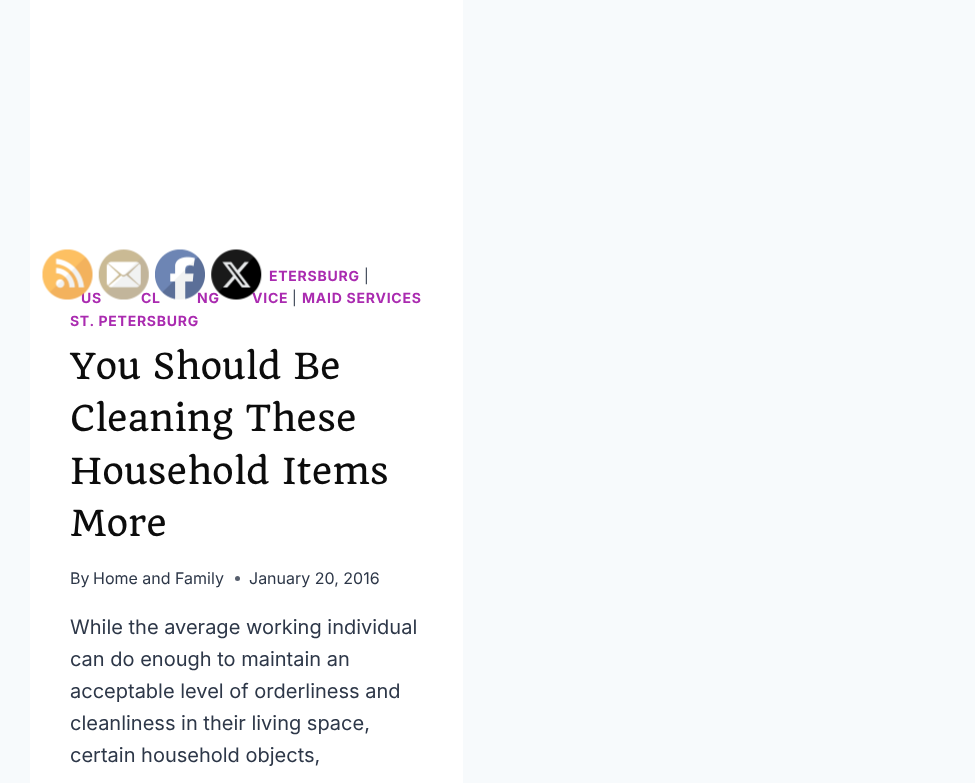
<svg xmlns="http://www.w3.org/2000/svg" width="975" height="783">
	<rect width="100%" height="100%" fill="#F7FAFC" />
	<rect x="30" y="0" width="433" height="783" fill="#FFFFFF" />
	<text x="81" y="303" font-family="Inter" font-size="14" font-weight="700" letter-spacing="0.75" fill="#AA2BB0">US</text>
	<image x="42" y="249" width="51" height="51" href="assets/img1.png" />
	<text x="141" y="303" font-family="Inter" font-size="14" font-weight="700" letter-spacing="0.75" fill="#AA2BB0">CL</text>
	<image x="98" y="249" width="51" height="51" href="assets/img2.png" />
	<text x="197" y="303" font-family="Inter" font-size="14" font-weight="700" letter-spacing="0.75" fill="#AA2BB0">NG</text>
	<image x="155" y="249" width="50" height="51" href="assets/img3.png" />
	<text x="252" y="303" font-family="Inter" font-size="14" font-weight="700" letter-spacing="0.75" fill="#AA2BB0">VICE</text>
	<image x="211" y="249" width="51" height="51" href="assets/img4.png" />
	<text x="269" y="281" font-family="Inter" font-size="14" font-weight="700" letter-spacing="0.75" fill="#AA2BB0">ETERSBURG</text>
	<g font-family="Inter" font-size="14" letter-spacing="0.75" fill="#2D3748">
		<text x="364" y="281">|</text>
		<text x="292" y="303">|</text>
	</g>
	<g font-family="Inter" font-size="14" font-weight="700" letter-spacing="0.75" fill="#AA2BB0">
		<text x="302" y="303">MAID SERVICES</text>
		<text x="70" y="326">ST. PETERSBURG</text>
	</g>
	<g font-family="Quando" font-size="35" fill="#0C0C0C">
		<text x="70" y="379">You Should Be</text>
		<text x="70" y="431">Cleaning These</text>
		<text x="70" y="484">Household Items</text>
		<text x="70" y="536">More</text>
	</g>
	<g font-family="Inter" font-size="16" fill="#2D3748">
		<text x="70" y="584">By</text>
		<text x="93" y="584">Home and Family</text>
	</g>
	<circle cx="237.5" cy="578.5" r="2.5" fill="#575F6D" />
	<text x="249" y="584" font-family="Inter" font-size="16" fill="#2D3748">January 20, 2016</text>
	<g font-family="Inter" font-size="20" fill="#2D3748">
		<text x="70" y="634">While the average working individual</text>
		<text x="70" y="666">can do enough to maintain an</text>
		<text x="70" y="698">acceptable level of orderliness and</text>
		<text x="70" y="730">cleanliness in their living space,</text>
		<text x="70" y="762">certain household objects,</text>
	</g>
</svg>
